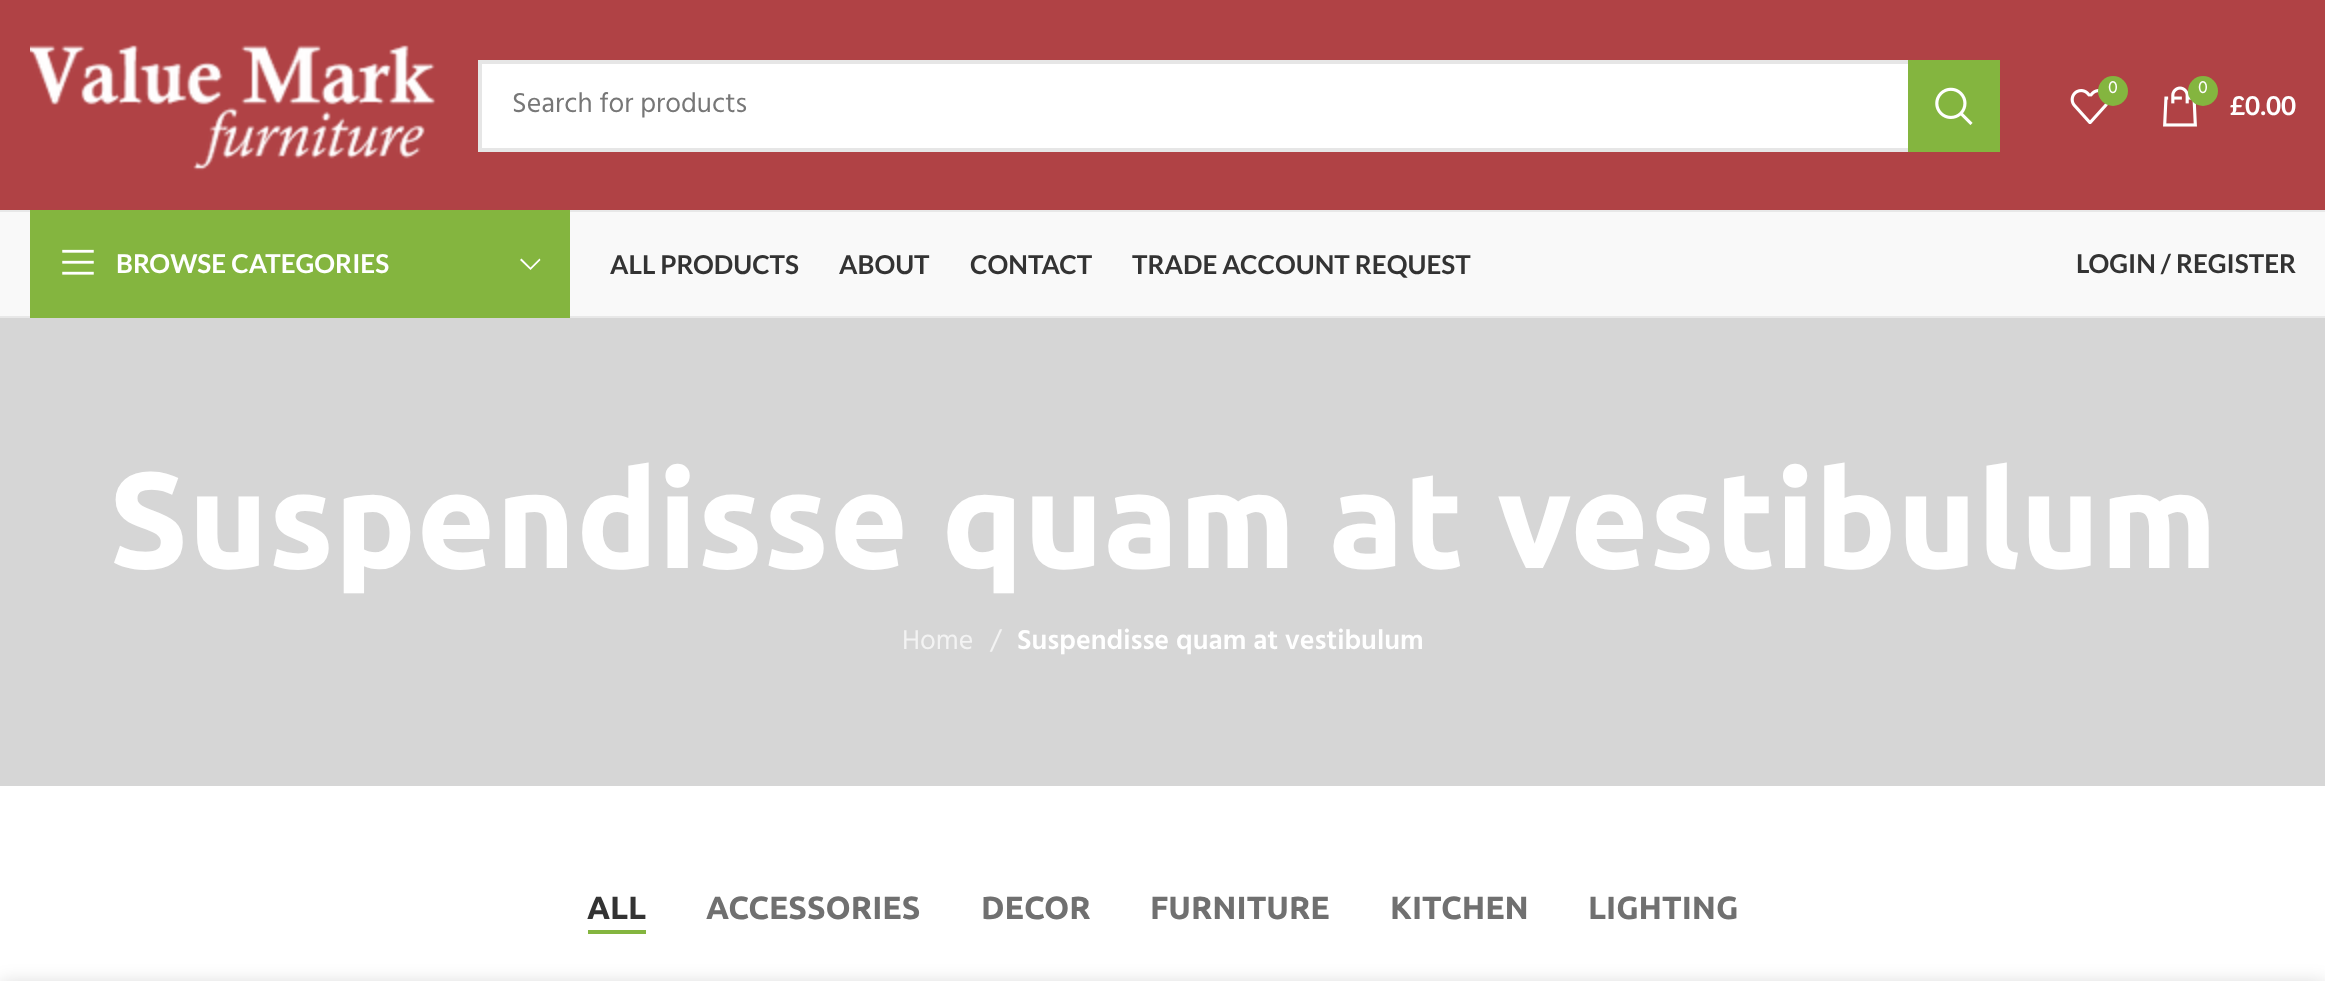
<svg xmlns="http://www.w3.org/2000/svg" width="2325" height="981">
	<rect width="100%" height="100%" fill="#FFFFFF" />
	<rect x="0" y="0" width="2325" height="210" fill="#B04245" />
	<rect x="0" y="210" width="2325" height="2" fill="#E8E8E8" />
	<image x="30" y="45" width="406" height="126" href="assets/img1.png" />
	<rect x="482" y="64" width="1426" height="84" fill="#FFFFFF" />
	<rect x="480" y="62" width="1518" height="88" fill="none" stroke="#E6E6E6" stroke-width="4" />
	<text x="512" y="112" font-family="Hind" font-size="28" fill="#777777">Search for products</text>
	<rect x="1908" y="60" width="92" height="92" fill="#84B53F" />
	<image x="1935" y="87" width="38" height="38" href="assets/img2.png" />
	<image x="2070" y="89" width="38" height="35" href="assets/img3.png" />
	<circle cx="2113" cy="91" r="15" fill="#84B53F" />
	<text x="2108" y="93" font-family="Hind" font-size="18" fill="#FFFFFF">0</text>
	<image x="2163" y="86" width="34" height="41" href="assets/img4.png" />
	<circle cx="2203" cy="91" r="15" fill="#84B53F" />
	<text x="2198" y="93" font-family="Hind" font-size="18" fill="#FFFFFF">0</text>
	<text x="2230" y="115" font-family="Lato" font-size="26" font-weight="700" fill="#FFFFFF">£0.00</text>
	<rect x="0" y="212" width="2325" height="104" fill="#F9F9F9" />
	<rect x="0" y="316" width="2325" height="2" fill="#E8E8E8" />
	<rect x="30" y="210" width="540" height="108" fill="#84B53F" />
	<image x="62" y="249" width="32" height="26" href="assets/img5.png" />
	<text x="116" y="273" font-family="Lato" font-size="26" font-weight="700" fill="#FFFFFF">BROWSE CATEGORIES</text>
	<path d="M539.5 258.5L530.5 267.5L521.5 258.5L520 260L530.5 270L540.5 260Z" fill="#FFFFFF" />
	<g font-family="Lato" font-size="26" font-weight="700" fill="#333333">
		<text x="610" y="274">ALL PRODUCTS</text>
		<text x="839" y="274">ABOUT</text>
		<text x="970" y="274">CONTACT</text>
		<text x="1132" y="274">TRADE ACCOUNT REQUEST</text>
		<text x="2076" y="273">LOGIN / REGISTER</text>
	</g>
	<rect x="0" y="318" width="2325" height="468" fill="#D6D6D6" />
	<text x="109" y="568" font-family="Ubuntu" font-size="136" font-weight="700" fill="#FFFFFF">Suspendisse quam at vestibulum</text>
	<g font-family="Hind" font-size="28" fill="#F3F3F3">
		<text x="902" y="649">Home</text>
		<text x="990" y="649">/</text>
	</g>
	<text x="1017" y="649" font-family="Hind" font-size="28" font-weight="600" fill="#FFFFFF">Suspendisse quam at vestibulum</text>
	<text x="587" y="919" font-family="Ubuntu" font-size="32" font-weight="700" fill="#333333">ALL</text>
	<rect x="588" y="930" width="58" height="4" fill="#84B53F" />
	<g font-family="Ubuntu" font-size="32" font-weight="700" fill="#707070">
		<text x="706" y="919">ACCESSORIES</text>
		<text x="981" y="919">DECOR</text>
		<text x="1150" y="919">FURNITURE</text>
		<text x="1390" y="919">KITCHEN</text>
		<text x="1588" y="919">LIGHTING</text>
	</g>
	<rect x="0" y="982" width="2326" height="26" fill="#000000" fill-opacity="0.14" filter="blur(9px)" />
</svg>
